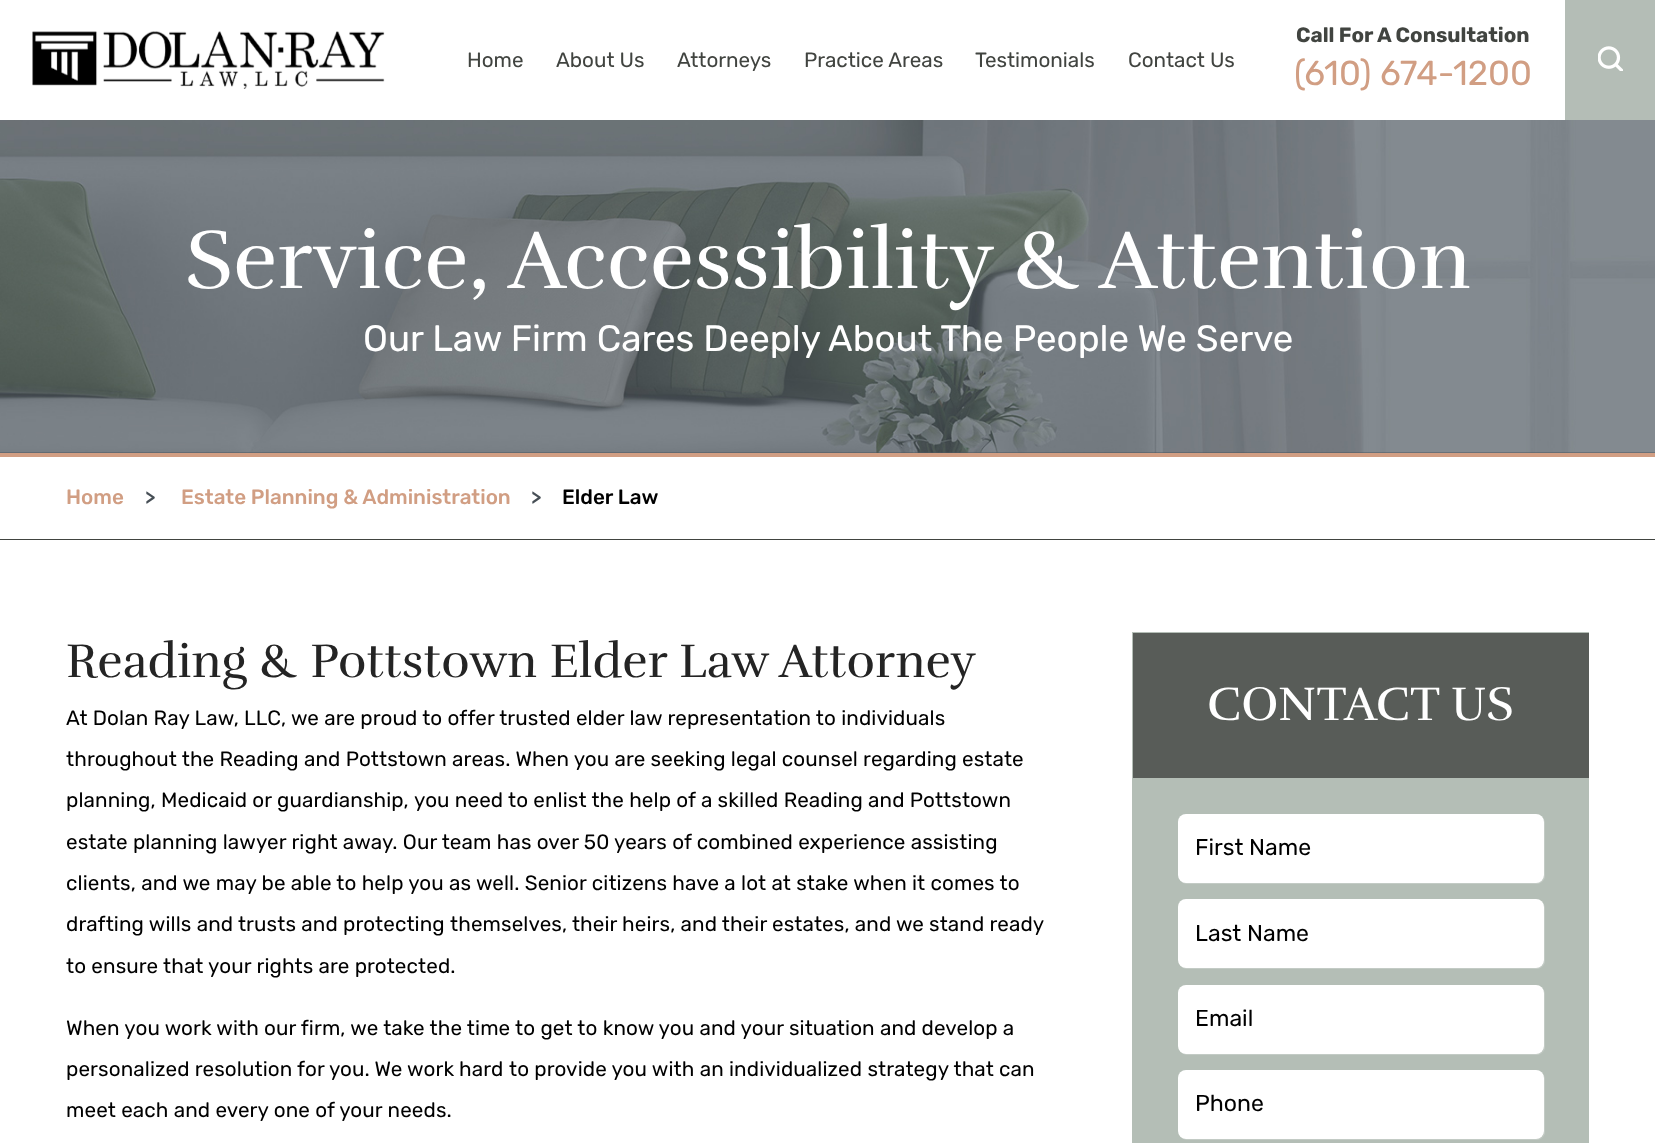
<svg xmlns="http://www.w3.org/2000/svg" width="1655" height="1143">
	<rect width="100%" height="100%" fill="#FFFFFF" />
	<image x="32" y="31" width="353" height="58" href="assets/img1.png" />
	<g font-family="Rubik" font-size="20.65" fill="#414440">
		<text x="467" y="67">Home</text>
		<text x="556" y="67">About Us</text>
		<text x="677" y="67">Attorneys</text>
		<text x="804" y="67">Practice Areas</text>
		<text x="975" y="67">Testimonials</text>
		<text x="1128" y="67">Contact Us</text>
	</g>
	<text x="1296" y="42" font-family="Rubik" font-size="20.65" font-weight="700" fill="#414440">Call For A Consultation</text>
	<text x="1294" y="85" font-family="Rubik" font-size="34.5" fill="#D19E83">(610) 674-1200</text>
	<rect x="1565" y="0" width="90" height="120" fill="#B4BDB6" />
	<image x="1598" y="46" width="25" height="25" href="assets/img2.png" />
	<rect x="0" y="452" width="1655" height="1" fill="#4F5860" />
	<image x="0" y="120" width="1655" height="333" href="assets/img3.png" />
	<text x="185" y="288" font-family="Rufina" font-size="84.4" fill="#FFFFFF">Service, Accessibility &amp; Attention</text>
	<text x="363" y="351" font-family="Rubik" font-size="36.75" fill="#FFFFFF">Our Law Firm Cares Deeply About The People We Serve</text>
	<rect x="0" y="453" width="1655" height="4" fill="#D19E83" />
	<rect x="0" y="539" width="1655" height="1" fill="#414440" />
	<text x="66" y="504" font-family="Rubik" font-size="20.65" font-weight="500" fill="#D19E83">Home</text>
	<text x="145" y="504" font-family="Rubik" font-size="20.65" font-weight="500" fill="#474F56">&gt;</text>
	<text x="181" y="504" font-family="Rubik" font-size="20.65" font-weight="500" fill="#D19E83">Estate Planning &amp; Administration</text>
	<text x="531" y="504" font-family="Rubik" font-size="20.65" font-weight="500" fill="#474F56">&gt;</text>
	<text x="562" y="504" font-family="Rubik" font-size="20.65" font-weight="500" fill="#000000">Elder Law</text>
	<text x="66" y="677" font-family="Rufina" font-size="48.25" letter-spacing="0.12" fill="#242424">Reading &amp; Pottstown Elder Law Attorney</text>
	<g font-family="Rubik" font-size="20.65" letter-spacing="0.12" fill="#000000">
		<text x="66" y="725">At Dolan Ray Law, LLC, we are proud to offer trusted elder law representation to individuals</text>
		<text x="66" y="766">throughout the Reading and Pottstown areas. When you are seeking legal counsel regarding estate</text>
		<text x="66" y="807">planning, Medicaid or guardianship,</text>
		<text x="414" y="807">you need to enlist the help of a skilled Reading and Pottstown</text>
		<text x="66" y="849">estate planning lawyer right away. Our team has over 50 years of combined experience assisting</text>
		<text x="66" y="890">clients, and we may be able to help you as well. Senior citizens have a lot at stake when it comes to</text>
		<text x="66" y="931">drafting wills and trusts and protecting</text>
		<text x="450" y="931" word-spacing="-0.1">themselves, their heirs, and their estates, and we stand ready</text>
		<text x="66" y="973">to ensure</text>
		<text x="163" y="973">that your rights are protected.</text>
		<text x="66" y="1035">When you work with our firm, we take the time to get to know you and your situation and develop a</text>
		<text x="66" y="1076" word-spacing="-0.1">personalized resolution for you. We work hard</text>
		<text x="509" y="1076">to provide you with an individualized strategy that can</text>
		<text x="66" y="1117">meet each and every one of your needs.</text>
	</g>
	<rect x="1132" y="632" width="457" height="511" fill="#B4BEB6" />
	<rect x="1133" y="633" width="456" height="145" fill="#585C58" />
	<text x="1207" y="720" font-family="Rufina" font-size="48.25" fill="#FFFFFF">CONTACT US</text>
	<path d="M1182 882C1183 883 1185 884 1187 884H1537C1541 884 1545 880 1545 876V823C1545 821 1544 819 1543 818L1544 821V876C1544 879 1541 882 1537 882H1184Z" fill="#C3CBC5" />
	<rect x="1178" y="814" width="366" height="69" rx="8" fill="#FFFFFF" />
	<text x="1195" y="855" font-family="Rubik" font-size="23" fill="#000000">First Name</text>
	<path d="M1182 967C1183 968 1185 969 1187 969H1537C1541 969 1545 965 1545 961V908C1545 906 1544 904 1543 903L1544 906V961C1544 964 1541 968 1537 968H1184Z" fill="#C3CBC5" />
	<rect x="1178" y="899" width="366" height="69" rx="8" fill="#FFFFFF" />
	<text x="1195" y="941" font-family="Rubik" font-size="23" fill="#000000">Last Name</text>
	<path d="M1182 1053C1184 1054 1185 1055 1187 1055H1537C1541 1055 1545 1051 1545 1047V994C1545 992 1544 990 1543 989L1544 992V1047C1544 1051 1541 1054 1537 1054H1184Z" fill="#C3CBC5" />
	<rect x="1178" y="985" width="366" height="69" rx="8" fill="#FFFFFF" />
	<text x="1195" y="1026" font-family="Rubik" font-size="23" fill="#000000">Email</text>
	<path d="M1182 1138C1184 1139 1185 1140 1187 1140H1537C1541 1140 1545 1136 1545 1132V1079C1545 1077 1544 1075 1543 1074L1544 1077V1132C1544 1136 1541 1139 1537 1139H1184Z" fill="#C3CBC5" />
	<rect x="1178" y="1070" width="366" height="69" rx="8" fill="#FFFFFF" />
	<text x="1195" y="1111" font-family="Rubik" font-size="23" fill="#000000">Phone</text>
</svg>
